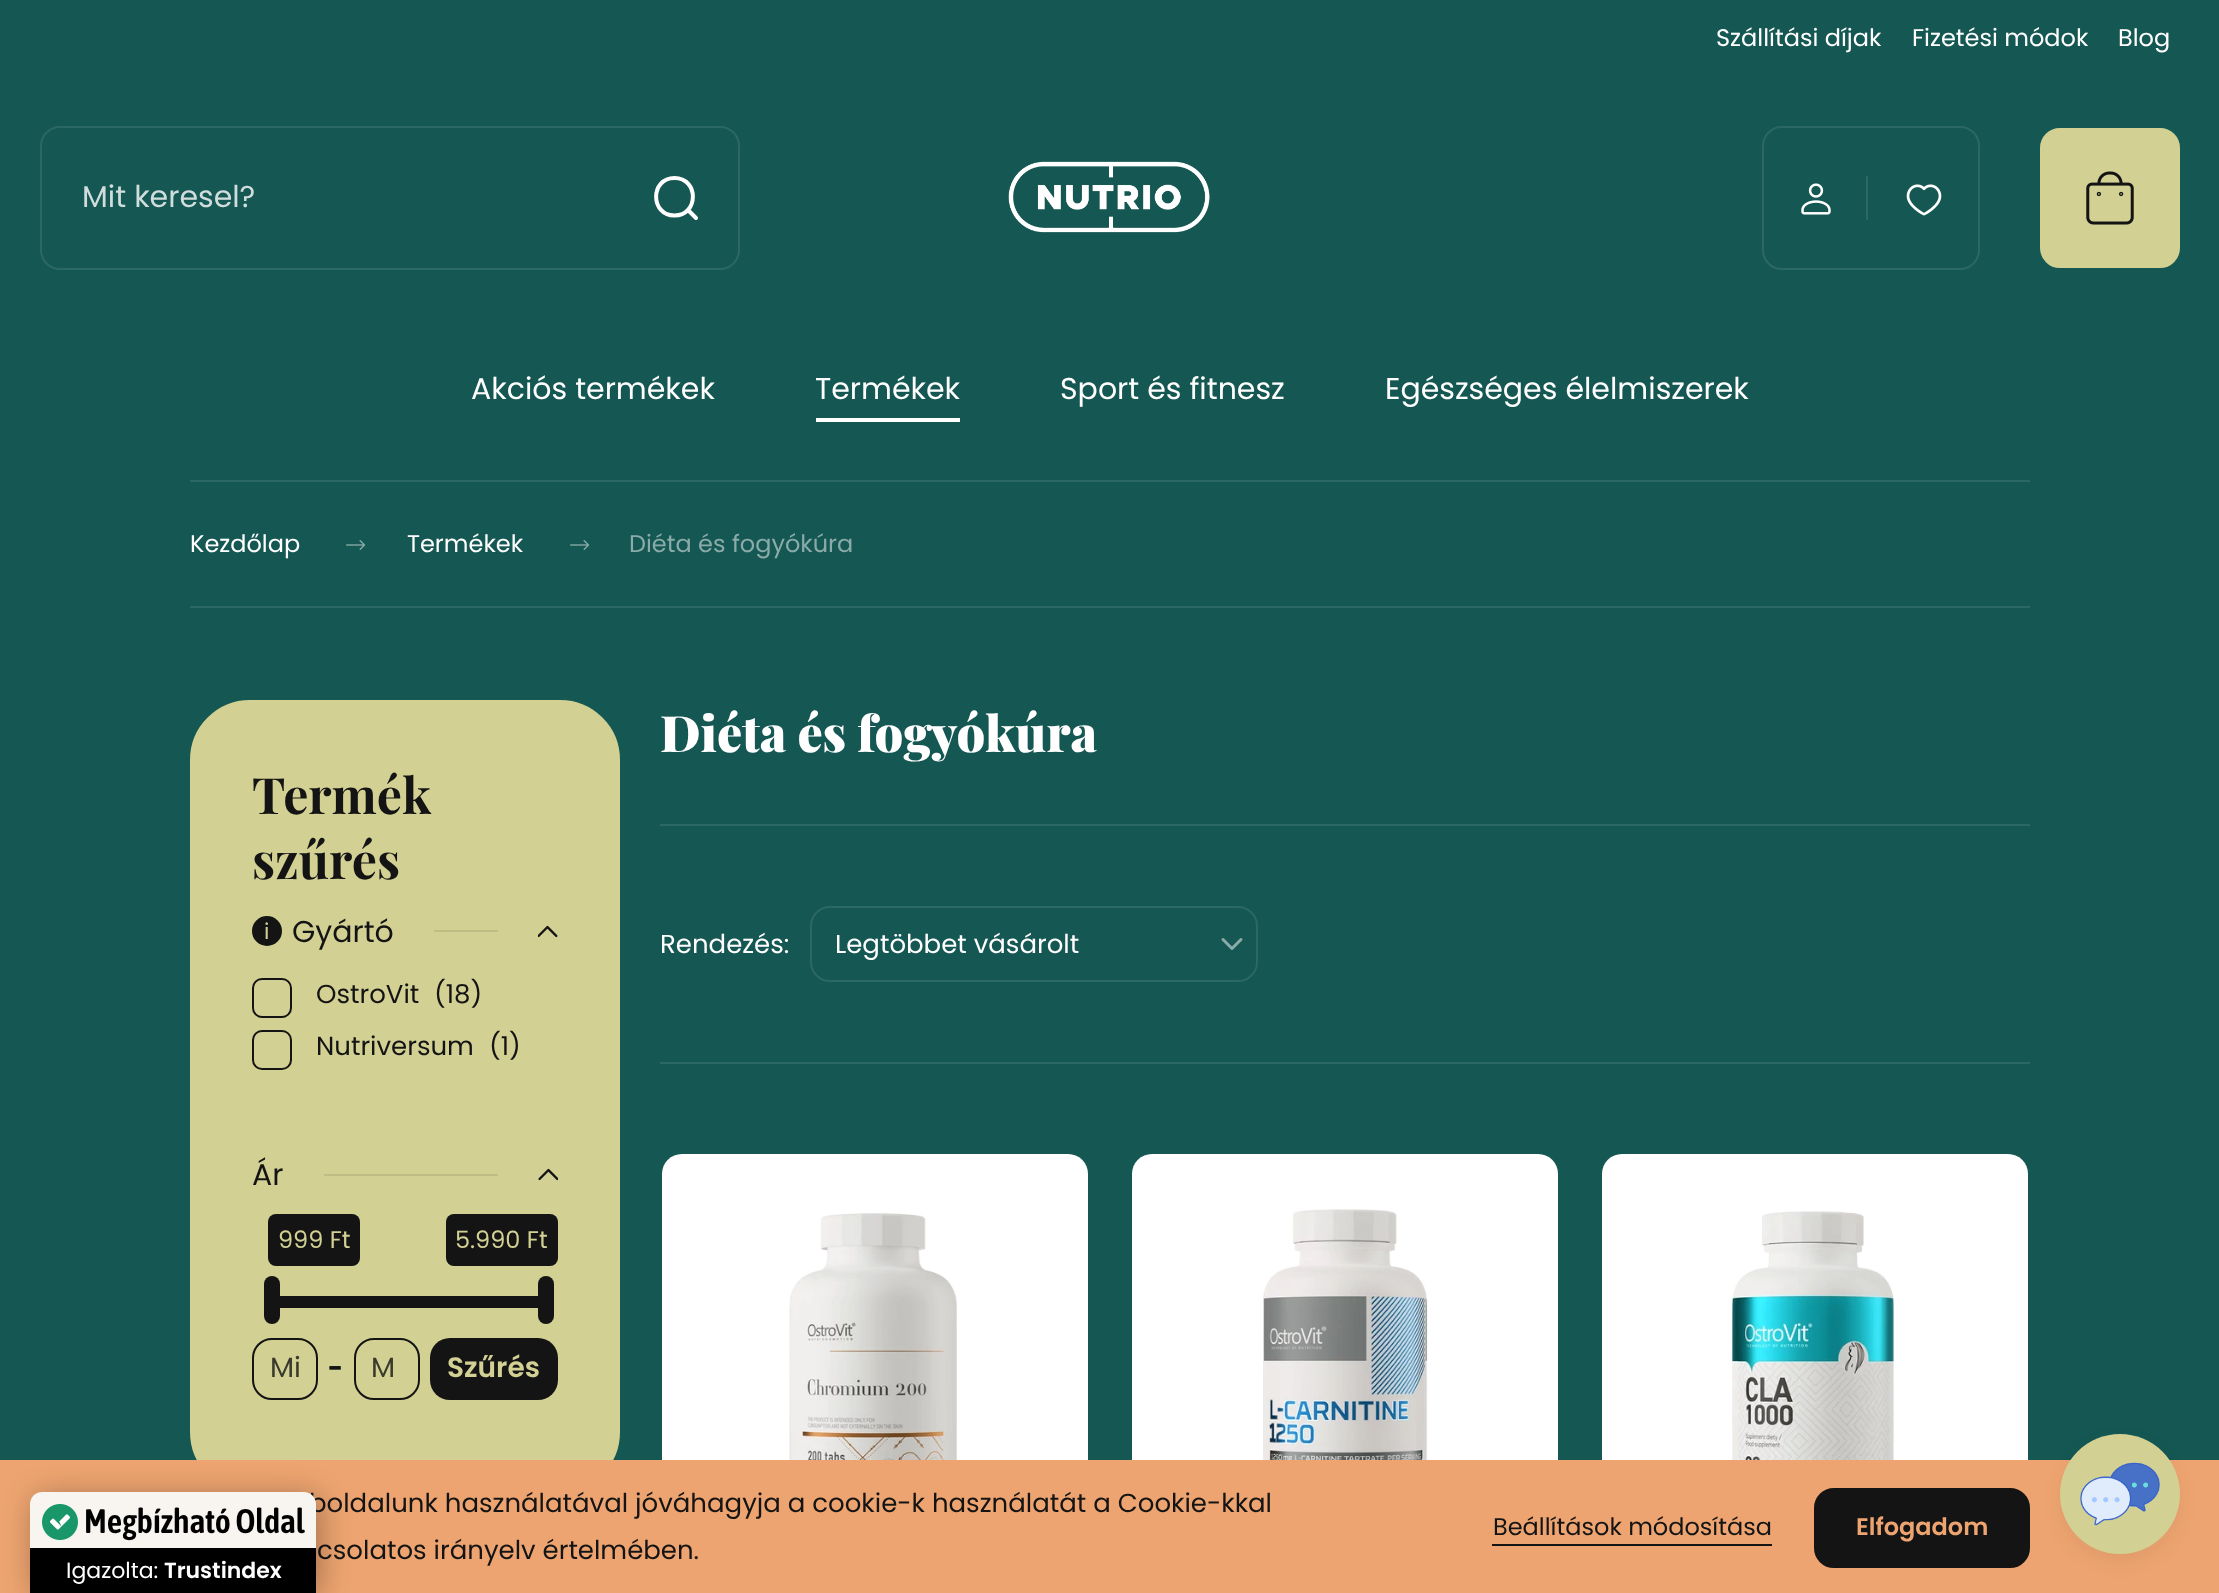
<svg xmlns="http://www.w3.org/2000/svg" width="2219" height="1593">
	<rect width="100%" height="100%" fill="#155752" />
	<g font-family="Poppins" font-size="24" fill="#FFFFFF">
		<text x="1716" y="46">Szállítási díjak</text>
		<text x="1912" y="46">Fizetési módok</text>
		<text x="2118" y="46">Blog</text>
	</g>
	<rect x="41" y="127" width="698" height="142" rx="19" fill="none" stroke="#2C6863" stroke-width="2" />
	<text x="82" y="207" font-family="Poppins" font-size="30" fill="#D0DDDC">Mit keresel?</text>
	<path d="M696 218L688 210M674.5 215.5C650 215.5 650 178 674.5 178C699 178 699 215.5 674.5 215.5Z" fill="none" stroke="#FFFFFF" stroke-width="4" stroke-linecap="round" stroke-linejoin="round" />
	<image x="1008" y="161" width="202" height="72" href="assets/img1.png" />
	<rect x="1763" y="127" width="216" height="142" rx="19" fill="none" stroke="#2C6863" stroke-width="2" />
	<image x="1801" y="183" width="30" height="32" href="assets/img2.png" />
	<rect x="1866" y="176" width="2" height="44" fill="#2C6863" />
	<image x="1906" y="184" width="36" height="32" href="assets/img3.png" />
	<rect x="2041" y="129" width="138" height="138" rx="19" fill="#D2D093" stroke="#D2D093" stroke-width="2" />
	<image x="2086" y="171" width="48" height="54" href="assets/img4.png" />
	<g font-family="Poppins" font-size="30" fill="#FFFFFF">
		<text x="471" y="399">Akciós termékek</text>
		<text x="815" y="399">Termékek</text>
	</g>
	<rect x="816" y="418" width="144" height="4" fill="#FFFFFF" />
	<g font-family="Poppins" font-size="30" fill="#FFFFFF">
		<text x="1060" y="399">Sport és fitnesz</text>
		<text x="1385" y="399">Egészséges élelmiszerek</text>
	</g>
	<rect x="190" y="480" width="1840" height="2" fill="#2C6863" />
	<rect x="190" y="606" width="1840" height="2" fill="#2C6863" />
	<text x="190" y="552" font-family="Poppins" font-size="24" fill="#FFFFFF">Kezdőlap</text>
	<image x="346" y="540" width="20" height="10" href="assets/img5.png" />
	<text x="407" y="552" font-family="Poppins" font-size="24" fill="#FFFFFF">Termékek</text>
	<image x="570" y="540" width="20" height="10" href="assets/img5.png" />
	<text x="629" y="552" font-family="Poppins" font-size="24" fill="#8AABA9">Diéta és fogyókúra</text>
	<rect x="191" y="701" width="428" height="790" rx="59" fill="#D2D093" stroke="#D2D093" stroke-width="2" />
	<g font-family="Playfair Display" font-size="50" font-weight="700" fill="#141414">
		<text x="252" y="814">Termék</text>
		<text x="252" y="879">szűrés</text>
	</g>
	<circle cx="267" cy="931" r="15" fill="#141414" />
	<text x="264" y="939" font-family="Poppins" font-size="22" fill="#D2D093">i</text>
	<text x="292" y="942" font-family="Poppins" font-size="30" fill="#141414">Gyártó</text>
	<rect x="434" y="930" width="64" height="2" fill="#BFBD86" />
	<image x="538" y="925" width="20" height="13" href="assets/img6.png" />
	<rect x="253" y="979" width="38" height="38" rx="9" fill="none" stroke="#141414" stroke-width="2" />
	<g font-family="Poppins" font-size="26" fill="#141414">
		<text x="316" y="1003">OstroVit</text>
		<text x="434" y="1003">(18)</text>
	</g>
	<rect x="253" y="1031" width="38" height="38" rx="9" fill="none" stroke="#141414" stroke-width="2" />
	<g font-family="Poppins" font-size="26" fill="#141414">
		<text x="316" y="1055">Nutriversum</text>
		<text x="489" y="1055">(1)</text>
	</g>
	<text x="252" y="1185" font-family="Poppins" font-size="30" fill="#141414">Ár</text>
	<rect x="324" y="1174" width="174" height="2" fill="#BFBD86" />
	<image x="538" y="1168" width="20" height="13" href="assets/img7.png" />
	<rect x="268" y="1214" width="92" height="52" rx="8" fill="#141414" />
	<text x="278" y="1248" font-family="Poppins" font-size="24" fill="#D2D093">999 Ft</text>
	<rect x="446" y="1214" width="112" height="52" rx="8" fill="#141414" />
	<text x="455" y="1248" font-family="Poppins" font-size="24" fill="#D2D093">5.990 Ft</text>
	<rect x="264" y="1276" width="16" height="48" rx="8" fill="#141414" />
	<rect x="280" y="1296" width="258" height="12" fill="#141414" />
	<rect x="538" y="1276" width="16" height="48" rx="8" fill="#141414" />
	<rect x="253" y="1339" width="64" height="60" rx="19" fill="none" stroke="#141414" stroke-width="2" />
	<text x="270" y="1377" font-family="Poppins" font-size="28" fill="#3A3A2D">Mi</text>
	<text x="328" y="1377" font-family="Poppins" font-size="26" font-weight="700" fill="#141414">-</text>
	<rect x="355" y="1339" width="64" height="60" rx="19" fill="none" stroke="#141414" stroke-width="2" />
	<text x="371" y="1377" font-family="Poppins" font-size="28" fill="#3A3A2D">M</text>
	<rect x="430" y="1338" width="128" height="62" rx="20" fill="#141414" />
	<text x="447" y="1377" font-family="Poppins" font-size="28" font-weight="600" fill="#D2D093">Szűrés</text>
	<text x="660" y="752" font-family="Playfair Display" font-size="50" font-weight="900" fill="#FFFFFF">Diéta és fogyókúra</text>
	<rect x="660" y="824" width="1370" height="2" fill="#2C6863" />
	<rect x="660" y="1062" width="1370" height="2" fill="#2C6863" />
	<text x="660" y="953" font-family="Poppins" font-size="26" fill="#FFFFFF">Rendezés:</text>
	<path d="M1223 939.5L1232 948.5L1241 939.5" fill="none" stroke="#8AABA9" stroke-width="3" stroke-linecap="round" stroke-linejoin="round" />
	<rect x="811" y="907" width="446" height="74" rx="19" fill="none" stroke="#2C6863" stroke-width="2" />
	<text x="835" y="953" font-family="Poppins" font-size="26" fill="#FFFFFF">Legtöbbet vásárolt</text>
	<rect x="662" y="1154" width="426" height="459" rx="20" fill="#FFFFFF" />
	<rect x="663" y="1155" width="424" height="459" rx="19" fill="none" stroke="#FFFFFF" stroke-opacity="0.1" stroke-width="2" />
	<image x="789" y="1213" width="168" height="247" href="assets/img8.png" />
	<rect x="1132" y="1154" width="426" height="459" rx="20" fill="#FFFFFF" />
	<rect x="1133" y="1155" width="424" height="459" rx="19" fill="none" stroke="#FFFFFF" stroke-opacity="0.1" stroke-width="2" />
	<image x="1263" y="1209" width="165" height="251" href="assets/img9.png" />
	<rect x="1602" y="1154" width="426" height="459" rx="20" fill="#FFFFFF" />
	<rect x="1603" y="1155" width="424" height="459" rx="19" fill="none" stroke="#FFFFFF" stroke-opacity="0.1" stroke-width="2" />
	<image x="1732" y="1211" width="162" height="249" href="assets/img10.png" />
	<rect x="0" y="1460" width="2219" height="133" fill="#EDA470" />
	<rect x="34" y="1496" width="286" height="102" rx="12" fill="#000000" fill-opacity="0.3" filter="blur(15px)" />
	<text x="309" y="1512" font-family="Poppins" font-size="26" fill="#141414">boldalunk használatával jóváhagyja a cookie-k használatát a Cookie-kkal</text>
	<path d="M42 1492H304C310.5 1492 316 1497.5 316 1504V1548H30V1504C30 1497.5 35.5 1492 42 1492Z" fill="#F8F5F0" />
	<image x="42" y="1504" width="36" height="36" href="assets/img11.png" />
	<text x="84" y="1533" font-family="Asap Condensed" font-size="34" font-weight="600" fill="#000000">Megbízható Oldal</text>
	<rect x="30" y="1548" width="286" height="45" fill="#000000" />
	<text x="66" y="1578" font-family="Poppins" font-size="22" fill="#FFFFFF">Igazolta:</text>
	<text x="164" y="1578" font-family="Poppins" font-size="22" font-weight="600" fill="#FFFFFF">Trustindex</text>
	<text x="317" y="1559" font-family="Poppins" font-size="26" fill="#141414">csolatos irányelv értelmében.</text>
	<text x="1493" y="1535" font-family="Poppins" font-size="24" fill="#141414">Beállítások módosítása</text>
	<rect x="1492" y="1544" width="280" height="2" fill="#141414" />
	<rect x="1815" y="1489" width="214" height="78" rx="19" fill="#141414" stroke="#141414" stroke-width="2" />
	<text x="1856" y="1535" font-family="Poppins" font-size="24" font-weight="600" fill="#EDA470">Elfogadom</text>
	<rect x="2060" y="1442" width="120" height="120" rx="60" fill="#000000" fill-opacity="0.05" filter="blur(10px)" />
	<circle cx="2120" cy="1494" r="60" fill="#D2D093" />
	<image x="2080" y="1462" width="80" height="64" href="assets/img12.png" />
</svg>
